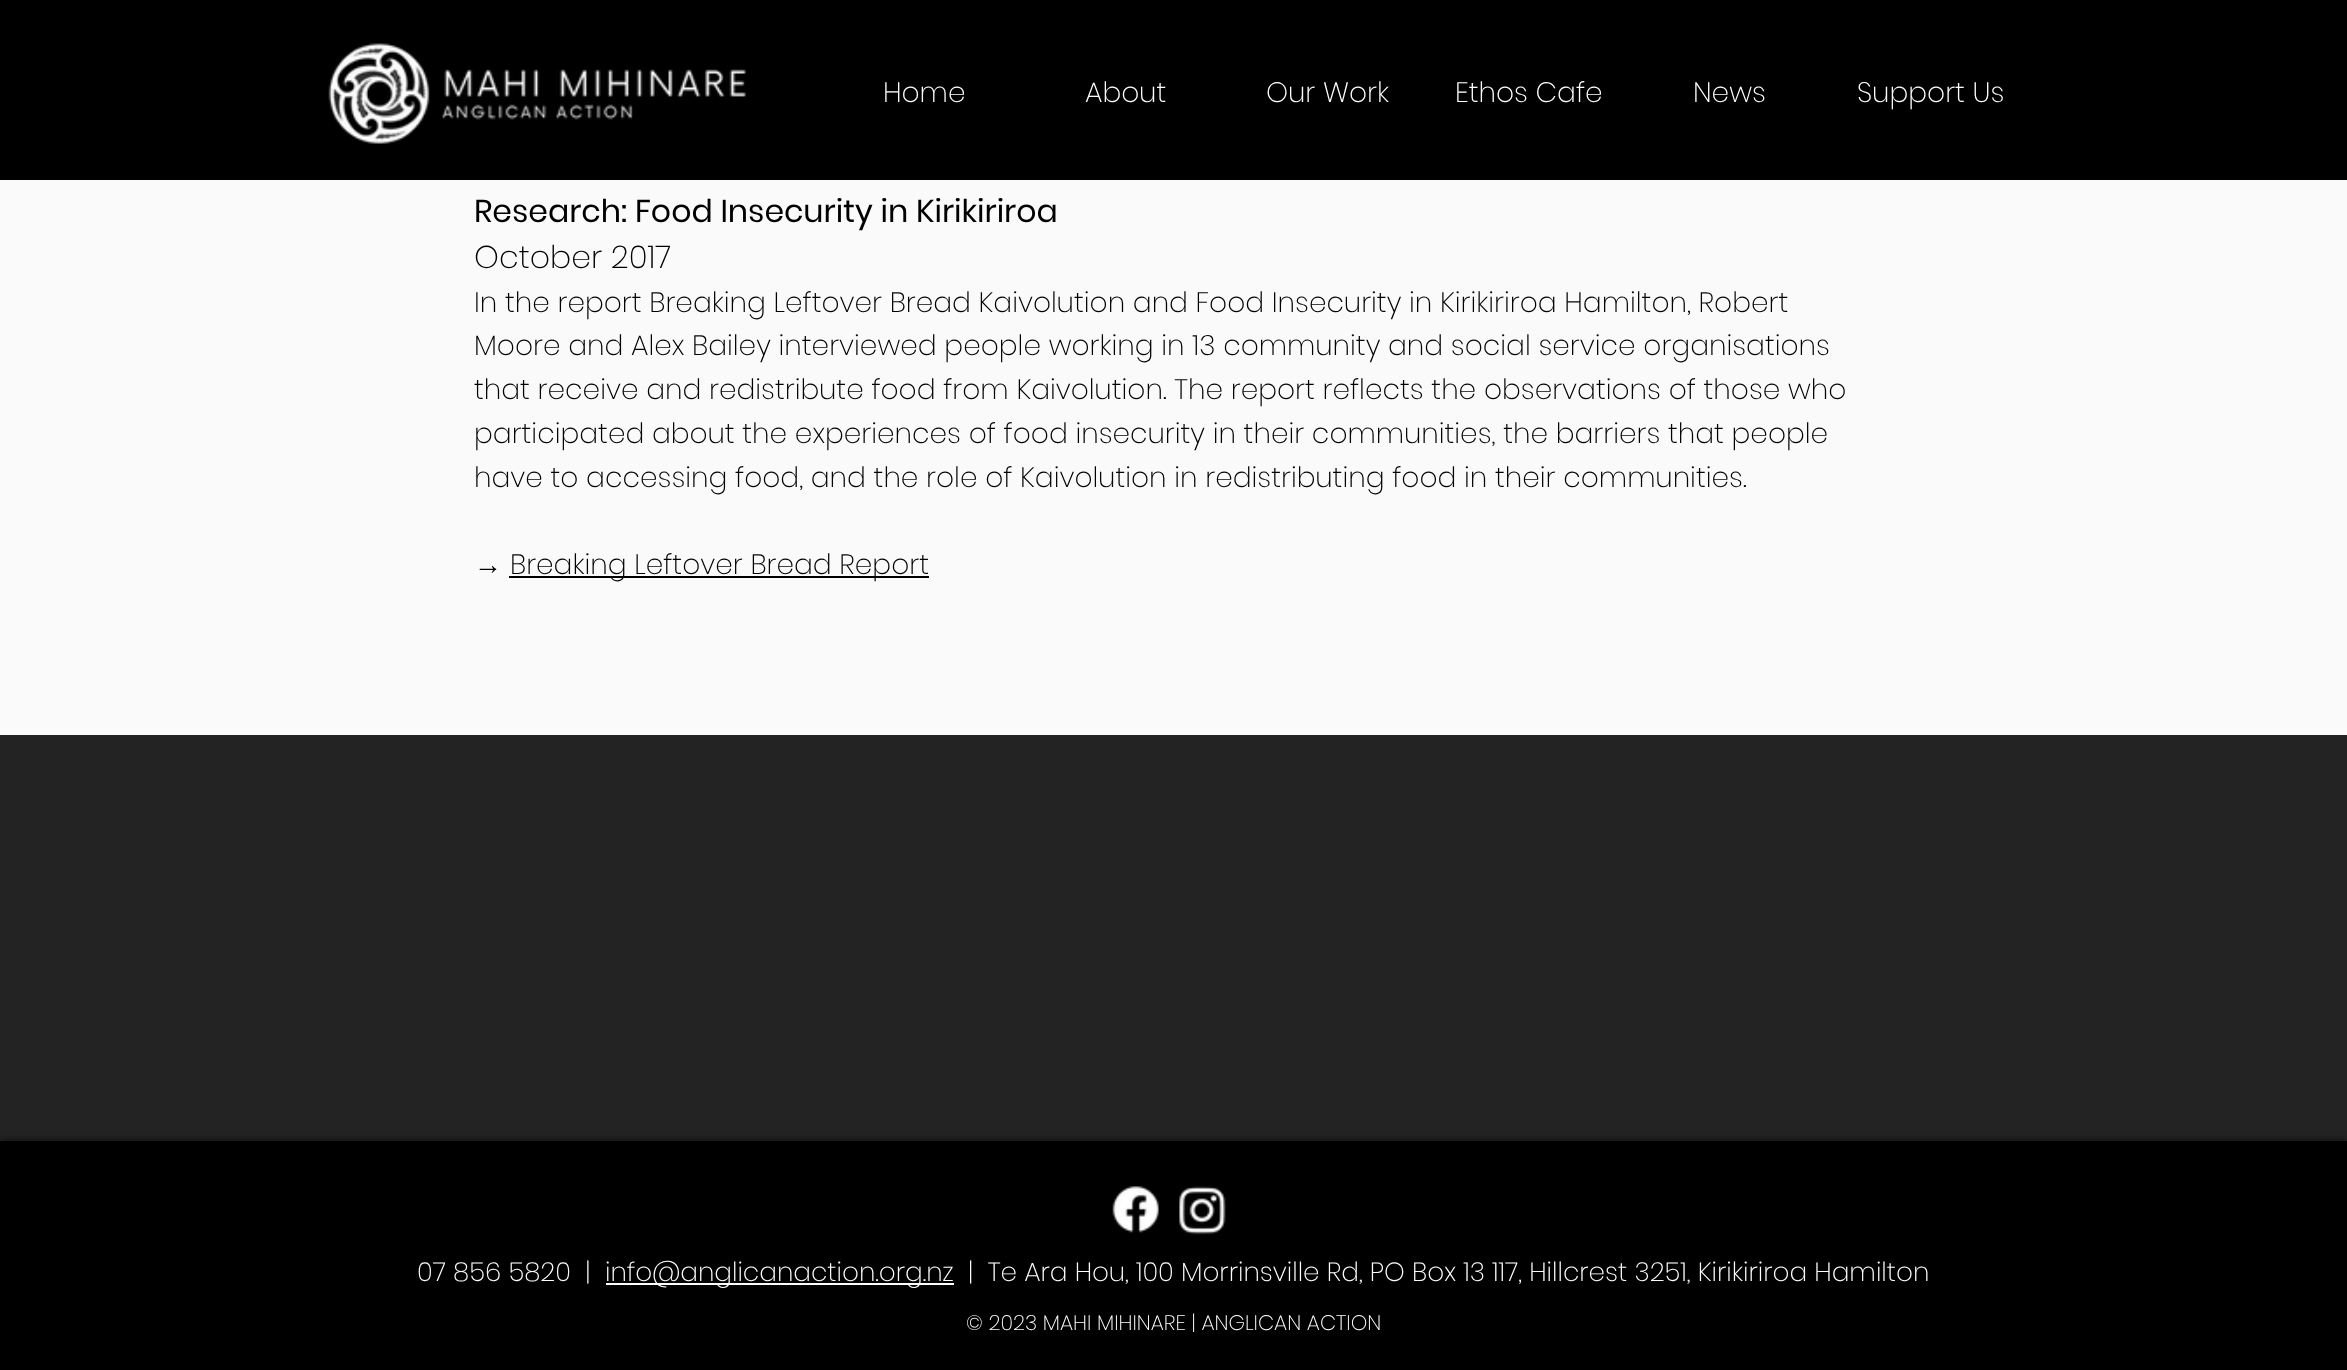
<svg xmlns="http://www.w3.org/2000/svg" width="2347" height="1370">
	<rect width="100%" height="100%" fill="#FAFAFA" />
	<rect x="0" y="0" width="2347" height="180" fill="#000000" />
	<image x="328" y="43" width="418" height="101" href="assets/img1.png" />
	<g font-family="Poppins" font-size="28" font-weight="200" fill="#FFFFFF">
		<text x="883" y="102">Home</text>
		<text x="1085" y="102">About</text>
		<text x="1266" y="102">Our Work</text>
		<text x="1455" y="102">Ethos Cafe</text>
		<text x="1693" y="102">News</text>
		<text x="1857" y="102">Support Us</text>
	</g>
	<text x="474" y="222" font-family="Poppins" font-size="31.5" fill="#000000">Research: Food Insecurity in Kirikiriroa</text>
	<text x="474" y="268" font-family="Poppins" font-size="31.5" font-weight="200" fill="#000000">October 2017</text>
	<g font-family="Poppins" font-size="28" font-weight="200" fill="#000000">
		<text x="474" y="312">In the report Breaking Leftover Bread Kaivolution and Food Insecurity in Kirikiriroa Hamilton, Robert</text>
		<text x="474" y="355">Moore and Alex Bailey interviewed people working in 13 community and social service organisations</text>
		<text x="474" y="399">that receive and redistribute food from Kaivolution. The report reflects the observations of those who</text>
		<text x="474" y="443">participated about the experiences of food insecurity in their communities, the barriers that people</text>
		<text x="474" y="487">have to accessing food, and the role of Kaivolution in redistributing food in their communities.</text>
	</g>
	<text x="474" y="574" font-family="Liberation Sans" font-size="28" fill="#000000">→</text>
	<rect x="509" y="576" width="420" height="2" fill="#000000" />
	<text x="510" y="574" font-family="Poppins" font-size="28" font-weight="200" fill="#000000">Breaking Leftover Bread Report</text>
	<rect x="0" y="735" width="2347" height="406" fill="#242323" />
	<rect x="0" y="1141" width="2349" height="229" fill="#000000" fill-opacity="0.7" filter="blur(4.5px)" />
	<rect x="0" y="1141" width="2347" height="229" fill="#000000" />
	<image x="1112" y="1186" width="47" height="47" href="assets/img2.png" />
	<image x="1179" y="1186" width="47" height="49" href="assets/img3.png" />
	<text x="417" y="1281" font-family="Poppins" font-size="26.25" font-weight="200" fill="#FFFFFF" xml:space="preserve">07 856 5820  |</text>
	<rect x="606" y="1283" width="348" height="2" fill="#FFFFFF" />
	<g font-family="Poppins" font-size="26.25" font-weight="200" fill="#FFFFFF">
		<text x="605" y="1281">info@anglicanaction.org.nz</text>
		<text x="968" y="1281" xml:space="preserve">|  Te Ara Hou, 100 Morrinsville Rd, PO Box 13 117, Hillcrest 3251, Kirikiriroa Hamilton</text>
	</g>
	<text x="966" y="1330" font-family="Poppins" font-size="21" font-weight="200" fill="#FFFFFF">© 2023 MAHI MIHINARE | ANGLICAN ACTION</text>
</svg>
